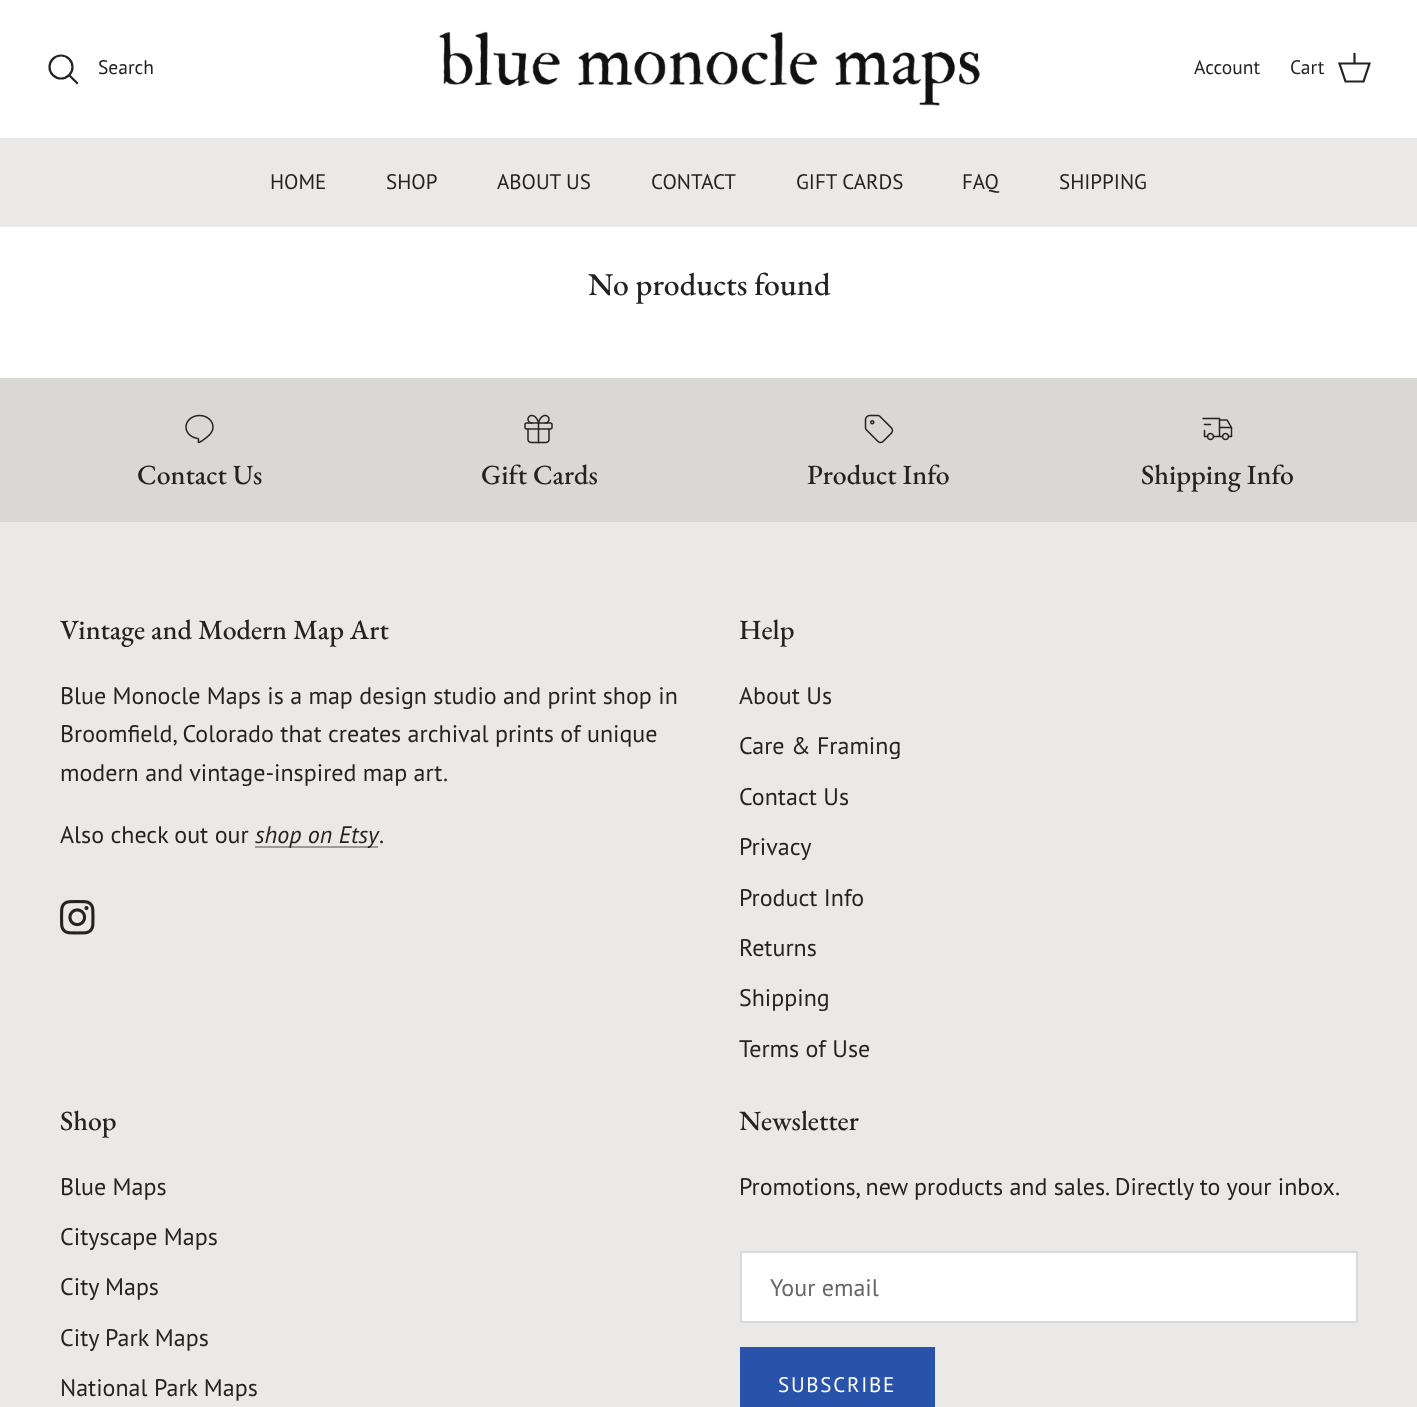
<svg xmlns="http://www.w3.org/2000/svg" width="1417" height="1407">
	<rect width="100%" height="100%" fill="#FFFFFF" />
	<circle cx="61" cy="67" r="11.5" fill="none" stroke="#232323" stroke-width="2.2" />
	<text x="98" y="74" font-family="PT Sans" font-size="19.5" fill="#232323">Search</text>
	<path d="M70.5 76.5L77 83" fill="none" stroke="#232323" stroke-width="2.2" stroke-linecap="square" />
	<image x="439" y="31" width="541" height="75" href="assets/img1.png" />
	<g font-family="PT Sans" font-size="19.5" fill="#232323">
		<text x="1194" y="74">Account</text>
		<text x="1290" y="74">Cart</text>
	</g>
	<path d="M1339.5 63.5H1369.5L1363.5 81.5H1345.5Z" fill="none" stroke="#232323" stroke-width="2.2" />
	<path d="M1354.5 63V54" fill="none" stroke="#232323" stroke-width="2.2" stroke-linecap="square" />
	<rect x="0" y="138" width="1417" height="89" fill="#EAE9E7" />
	<g font-family="PT Sans" font-size="21" fill="#232323">
		<text x="270" y="189">HOME</text>
		<text x="386" y="189">SHOP</text>
		<text x="497" y="189">ABOUT US</text>
		<text x="651" y="189">CONTACT</text>
		<text x="796" y="189">GIFT CARDS</text>
		<text x="962" y="189">FAQ</text>
		<text x="1059" y="189">SHIPPING</text>
	</g>
	<text x="588" y="295" font-family="EB Garamond" font-size="31.75" font-weight="500" fill="#232323">No products found</text>
	<rect x="0" y="378" width="1417" height="144" fill="#DAD8D4" />
	<image x="185" y="414" width="29" height="30" href="assets/img2.png" />
	<text x="137" y="484" font-family="EB Garamond" font-size="27.8" font-weight="500" fill="#232323">Contact Us</text>
	<image x="524" y="414" width="29" height="30" href="assets/img3.png" />
	<text x="481" y="484" font-family="EB Garamond" font-size="27.8" font-weight="500" fill="#232323">Gift Cards</text>
	<image x="864" y="414" width="30" height="30" href="assets/img4.png" />
	<text x="807" y="484" font-family="EB Garamond" font-size="27.8" font-weight="500" fill="#232323">Product Info</text>
	<image x="1202" y="417" width="31" height="24" href="assets/img5.png" />
	<text x="1141" y="484" font-family="EB Garamond" font-size="27.8" font-weight="500" fill="#232323">Shipping Info</text>
	<rect x="0" y="522" width="1417" height="885" fill="#EAE9E7" />
	<text x="60" y="639" font-family="EB Garamond" font-size="27.8" font-weight="500" fill="#232323">Vintage and Modern Map Art</text>
	<g font-family="PT Sans" font-size="24" fill="#232323">
		<text x="60" y="704">Blue Monocle Maps is a map design studio and print shop in</text>
		<text x="60" y="742">Broomfield, Colorado that creates archival prints of unique</text>
		<text x="60" y="781">modern and vintage-inspired map art.</text>
		<text x="60" y="843">Also check out our</text>
	</g>
	<rect x="255" y="846" width="123" height="2" fill="#9A9A99" />
	<text x="255" y="843" font-family="PT Sans" font-size="24" font-style="italic" fill="#232323">shop on Etsy</text>
	<text x="379" y="843" font-family="PT Sans" font-size="24" fill="#232323">.</text>
	<image x="60" y="900" width="35" height="35" href="assets/img6.png" />
	<text x="739" y="639" font-family="EB Garamond" font-size="27.8" font-weight="500" fill="#232323">Help</text>
	<g font-family="PT Sans" font-size="24" fill="#232323">
		<text x="739" y="704">About Us</text>
		<text x="739" y="754">Care &amp; Framing</text>
		<text x="739" y="805">Contact Us</text>
		<text x="739" y="855">Privacy</text>
		<text x="739" y="906">Product Info</text>
		<text x="739" y="956">Returns</text>
		<text x="739" y="1006">Shipping</text>
		<text x="739" y="1057">Terms of Use</text>
	</g>
	<text x="60" y="1130" font-family="EB Garamond" font-size="27.8" font-weight="500" fill="#232323">Shop</text>
	<g font-family="PT Sans" font-size="24" fill="#232323">
		<text x="60" y="1195">Blue Maps</text>
		<text x="60" y="1245">Cityscape Maps</text>
		<text x="60" y="1295">City Maps</text>
		<text x="60" y="1346">City Park Maps</text>
		<text x="60" y="1396">National Park Maps</text>
	</g>
	<text x="739" y="1130" font-family="EB Garamond" font-size="27.8" font-weight="500" fill="#232323">Newsletter</text>
	<text x="739" y="1195" font-family="PT Sans" font-size="24" fill="#232323">Promotions, new products and sales. Directly to your inbox.</text>
	<rect x="741" y="1252" width="616" height="70" fill="#FFFFFF" stroke="#D9D9D9" stroke-width="2" />
	<text x="770" y="1296" font-family="PT Sans" font-size="24" fill="#666666">Your email</text>
	<rect x="740" y="1347" width="195" height="60" fill="#2952AB" />
	<text x="778" y="1392" font-family="PT Sans" font-size="21" letter-spacing="1.75" fill="#FFFFFF">SUBSCRIBE</text>
</svg>
